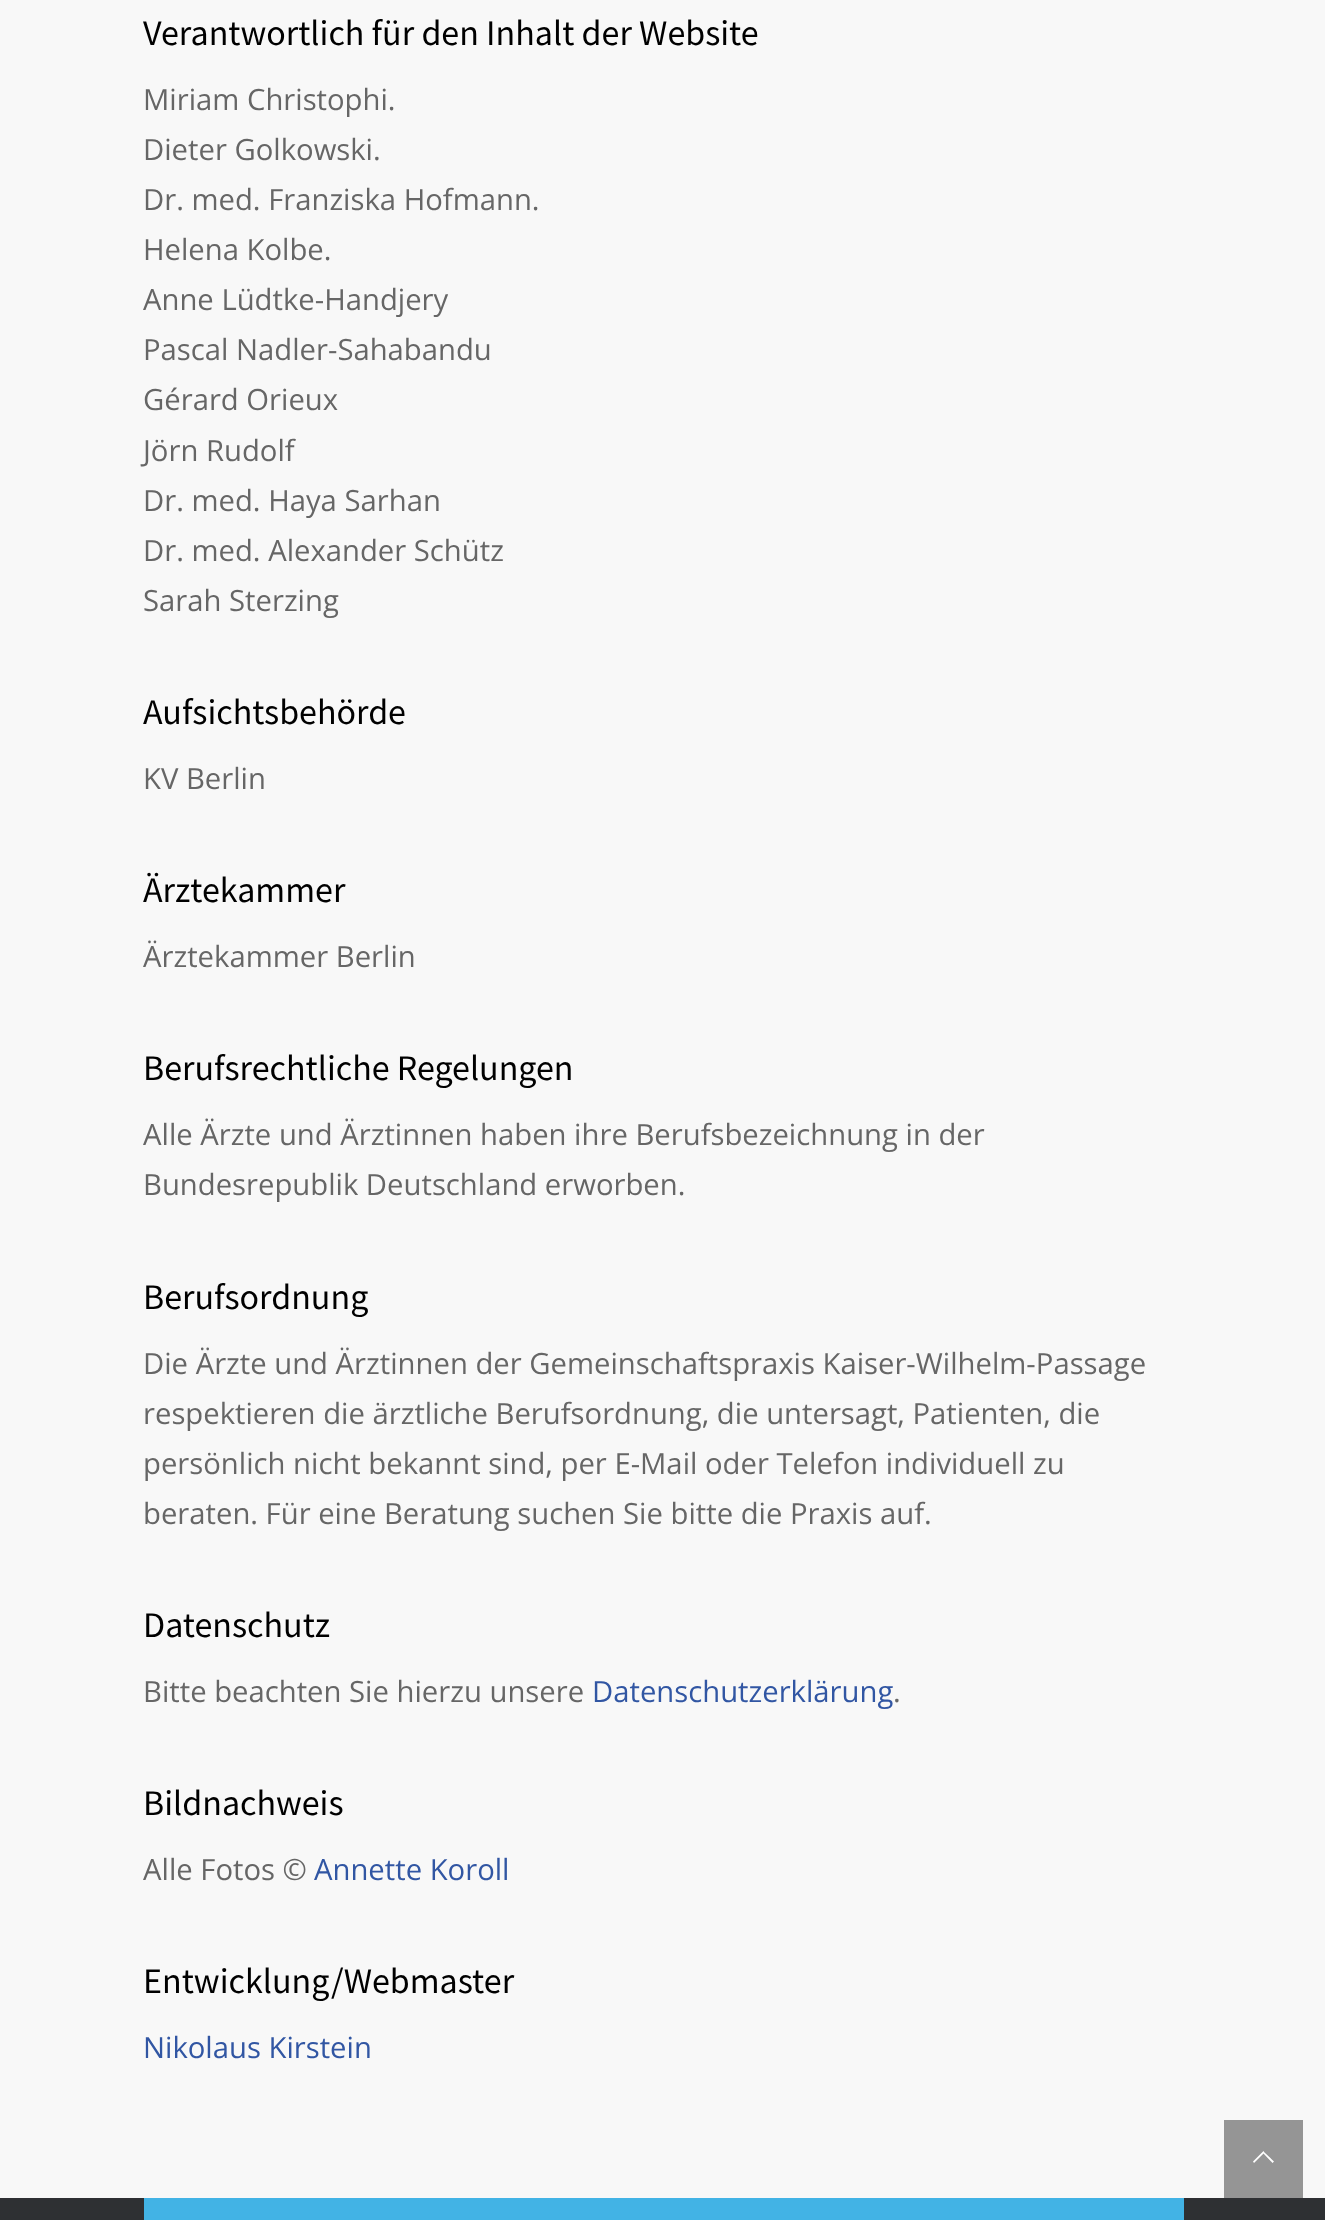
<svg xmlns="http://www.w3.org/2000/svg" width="1325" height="2220">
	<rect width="100%" height="100%" fill="#F8F8F8" />
	<text x="143" y="45" font-family="Source Sans Pro" font-size="36" fill="#000000">Verantwortlich für den Inhalt der Website</text>
	<g font-family="Open Sans" font-size="29.25" fill="#666666">
		<text x="143" y="110">Miriam Christophi.</text>
		<text x="143" y="160">Dieter Golkowski.</text>
		<text x="143" y="210">Dr. med. Franziska Hofmann.</text>
		<text x="143" y="260">Helena Kolbe.</text>
		<text x="143" y="310">Anne Lüdtke-Handjery</text>
		<text x="143" y="360">Pascal Nadler-Sahabandu</text>
		<text x="143" y="410">Gérard Orieux</text>
		<text x="143" y="461">Jörn Rudolf</text>
		<text x="143" y="511">Dr. med. Haya Sarhan</text>
		<text x="143" y="561">Dr. med. Alexander Schütz</text>
		<text x="143" y="611">Sarah Sterzing</text>
	</g>
	<text x="143" y="724" font-family="Source Sans Pro" font-size="36" fill="#000000">Aufsichtsbehörde</text>
	<text x="143" y="789" font-family="Open Sans" font-size="29.25" fill="#666666">KV Berlin</text>
	<text x="143" y="902" font-family="Source Sans Pro" font-size="36" fill="#000000">Ärztekammer</text>
	<text x="143" y="967" font-family="Open Sans" font-size="29.25" fill="#666666">Ärztekammer Berlin</text>
	<text x="143" y="1080" font-family="Source Sans Pro" font-size="36" fill="#000000">Berufsrechtliche Regelungen</text>
	<g font-family="Open Sans" font-size="29.25" fill="#666666">
		<text x="143" y="1145">Alle Ärzte und Ärztinnen haben ihre Berufsbezeichnung in der</text>
		<text x="143" y="1195">Bundesrepublik Deutschland erworben.</text>
	</g>
	<text x="143" y="1309" font-family="Source Sans Pro" font-size="36" fill="#000000">Berufsordnung</text>
	<g font-family="Open Sans" font-size="29.25" fill="#666666">
		<text x="143" y="1374">Die Ärzte und Ärztinnen der Gemeinschaftspraxis Kaiser-Wilhelm-Passage</text>
		<text x="143" y="1424">respektieren die ärztliche Berufsordnung, die untersagt, Patienten, die</text>
		<text x="143" y="1474">persönlich nicht bekannt sind, per E-Mail oder Telefon individuell zu</text>
		<text x="143" y="1524">beraten. Für eine Beratung suchen Sie bitte die Praxis auf.</text>
	</g>
	<text x="143" y="1637" font-family="Source Sans Pro" font-size="36" fill="#000000">Datenschutz</text>
	<text x="143" y="1702" font-family="Open Sans" font-size="29.25" fill="#666666">Bitte beachten Sie hierzu unsere</text>
	<text x="592" y="1702" font-family="Open Sans" font-size="29.25" fill="#3156A3">Datenschutzerklärung</text>
	<text x="893" y="1702" font-family="Open Sans" font-size="29.25" fill="#666666">.</text>
	<text x="143" y="1815" font-family="Source Sans Pro" font-size="36" fill="#000000">Bildnachweis</text>
	<text x="143" y="1880" font-family="Open Sans" font-size="29.25" fill="#666666">Alle Fotos ©</text>
	<text x="314" y="1880" font-family="Open Sans" font-size="29.25" fill="#3156A3">Annette Koroll</text>
	<text x="143" y="1993" font-family="Source Sans Pro" font-size="36" fill="#000000">Entwicklung/Webmaster</text>
	<text x="143" y="2058" font-family="Open Sans" font-size="29.25" fill="#3156A3">Nikolaus Kirstein</text>
	<rect x="0" y="2198" width="1325" height="22" fill="#2E3033" />
	<rect x="144" y="2198" width="1040" height="22" fill="#42B3E5" />
	<rect x="1224" y="2120" width="79" height="78" fill="#959595" />
	<path d="M1264.5 2152.5L1263.5 2151L1253 2161.5L1254 2163L1263.5 2153.5L1272.5 2163L1274 2161.5Z" fill="#FFFFFF" />
</svg>
